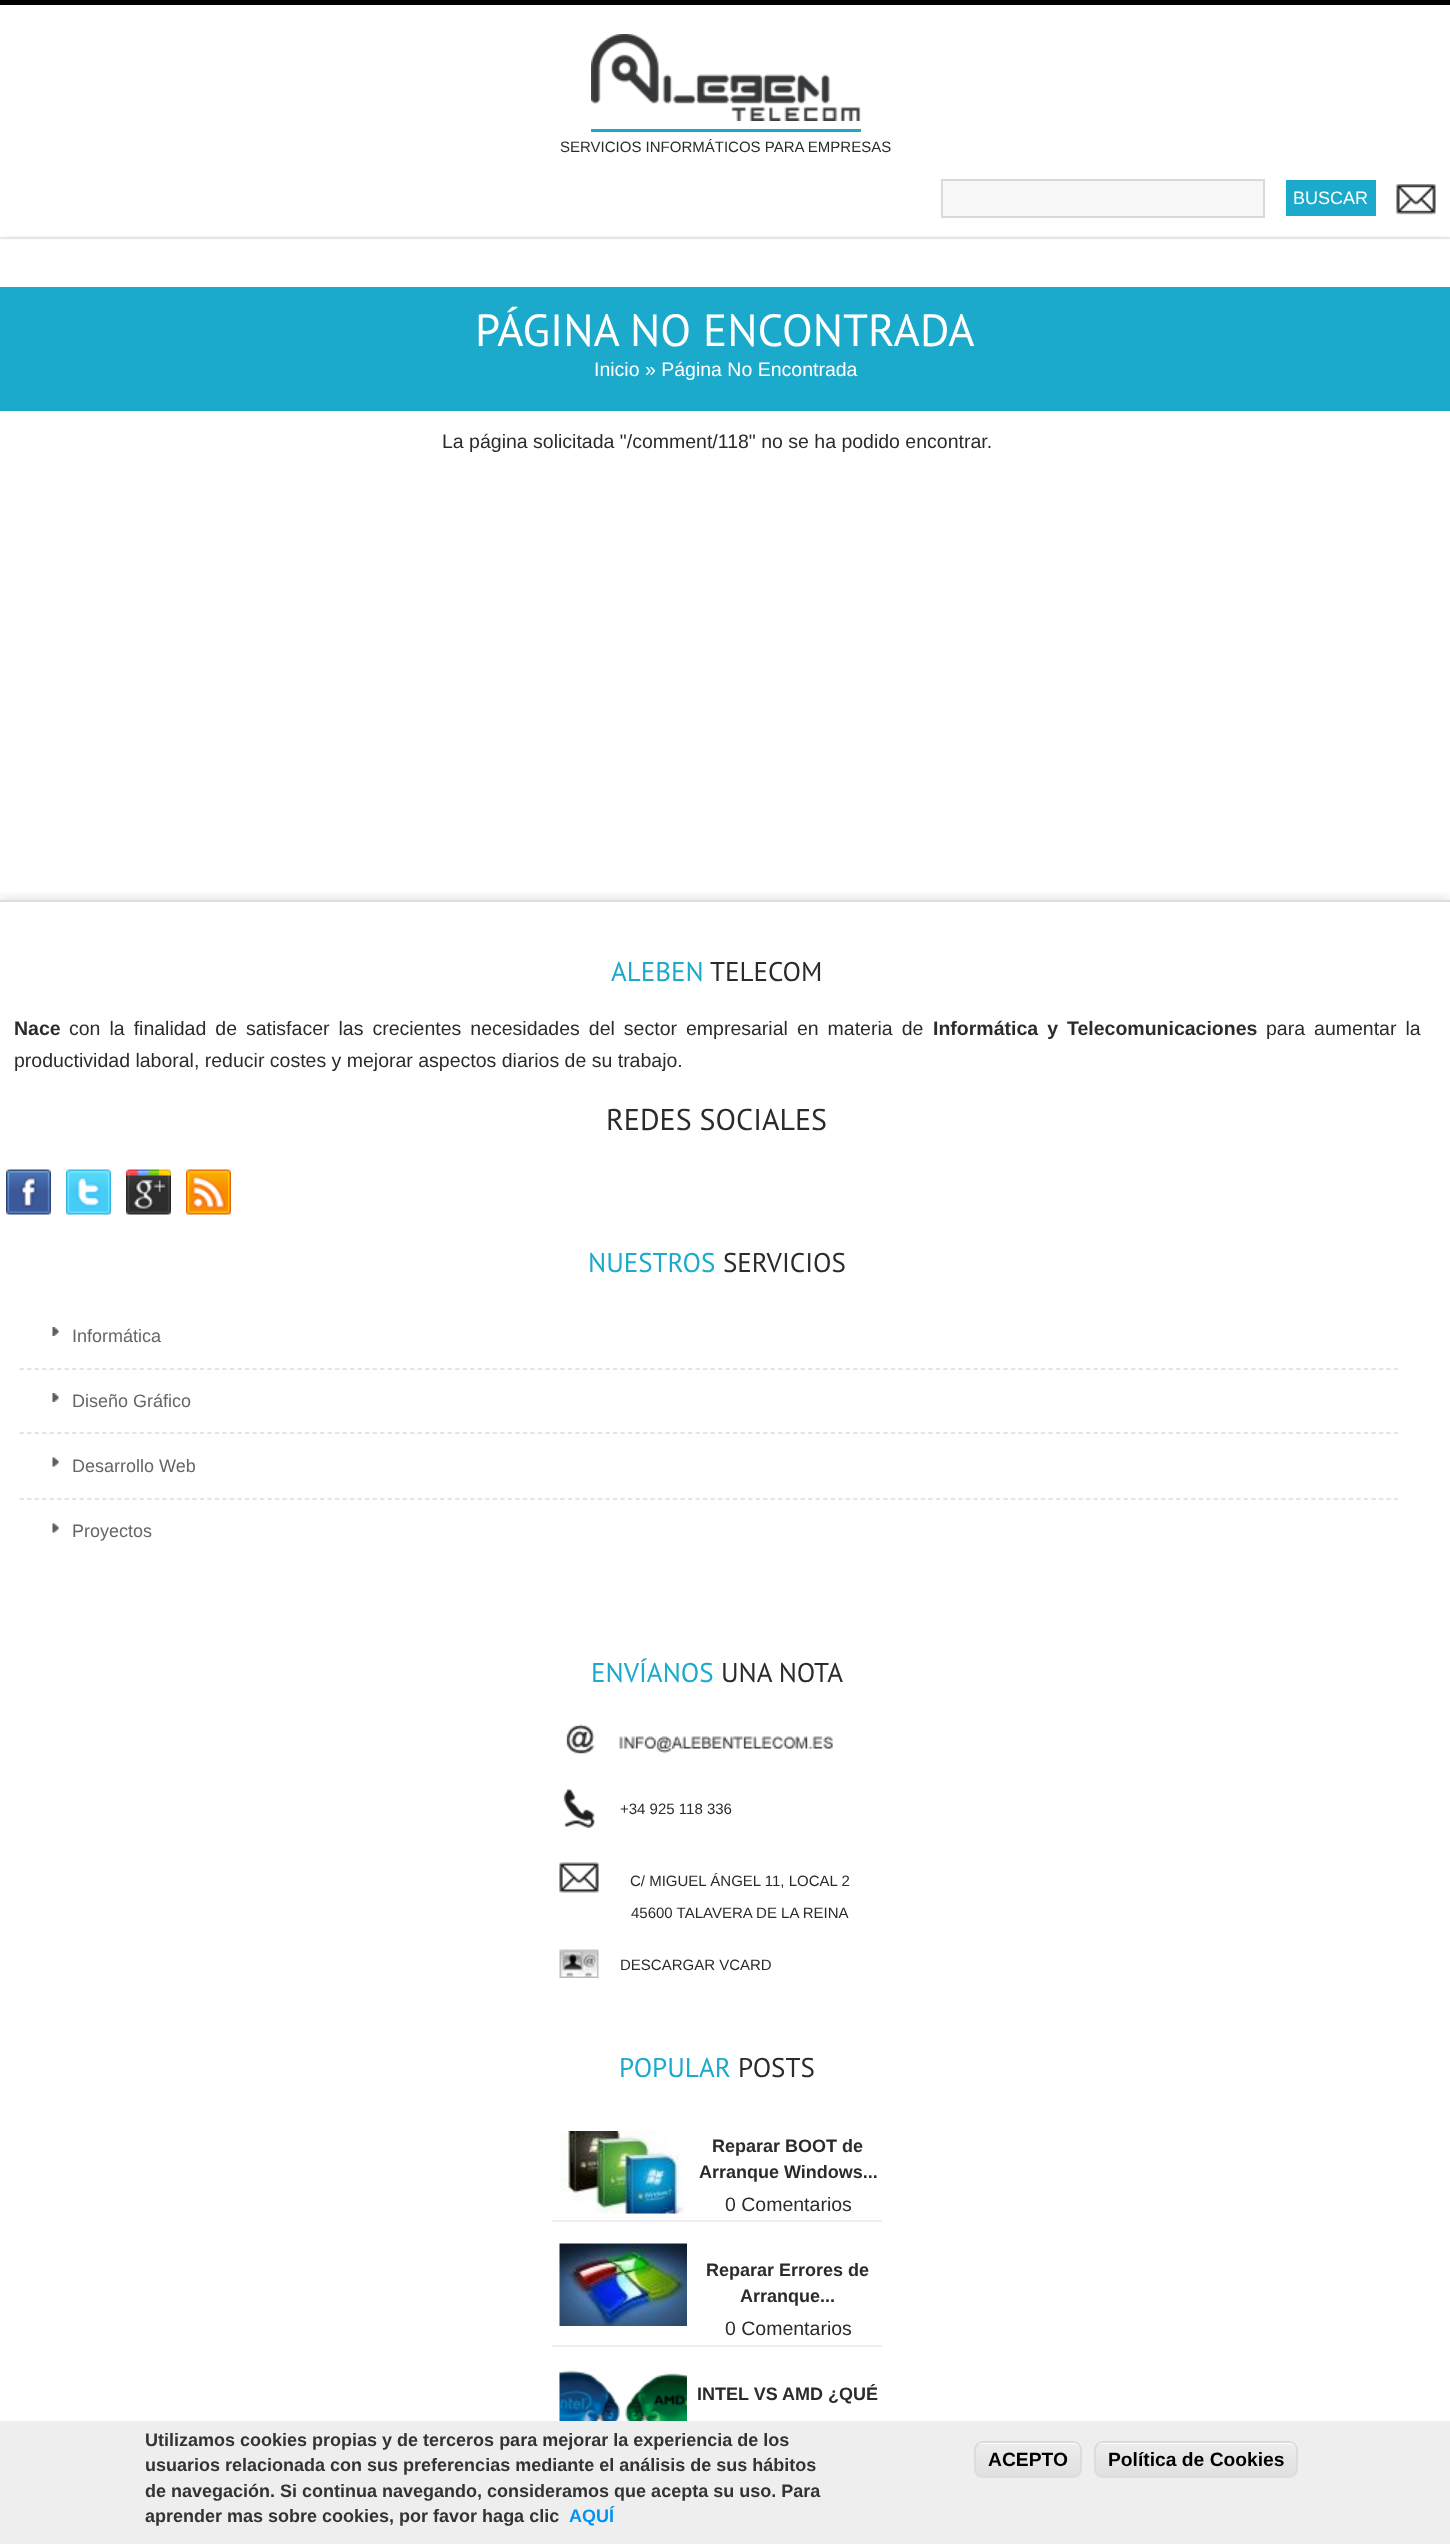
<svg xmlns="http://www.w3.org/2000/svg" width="1450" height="2544">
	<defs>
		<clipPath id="clip1"><rect x="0" y="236" width="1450" height="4" /></clipPath>
		<clipPath id="clip2"><rect x="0" y="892" width="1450" height="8" /></clipPath>
		<clipPath id="clip3"><rect x="974" y="2441" width="108" height="37" rx="9" /></clipPath>
		<linearGradient id="g1" gradientUnits="userSpaceOnUse" x1="975" y1="2442" x2="975" y2="2477"><stop offset="0.05" stop-color="#EDEDED" /><stop offset="1" stop-color="#DFDFDF" /></linearGradient>
		<clipPath id="clip4"><rect x="1094" y="2441" width="204" height="37" rx="9" /></clipPath>
		<linearGradient id="g2" gradientUnits="userSpaceOnUse" x1="1095" y1="2442" x2="1095" y2="2477"><stop offset="0.05" stop-color="#EDEDED" /><stop offset="1" stop-color="#DFDFDF" /></linearGradient>
	</defs>
	<rect width="100%" height="100%" fill="#FFFFFF" />
	<rect x="0" y="237" width="1450" height="2" fill="#EEEEEE" />
	<g clip-path="url(#clip1)">
		<rect x="0" y="-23" width="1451" height="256" fill="#000000" fill-opacity="0.12" filter="blur(7.5px)" />
	</g>
	<rect x="0" y="0" width="1450" height="5" fill="#000000" />
	<image x="591" y="34" width="270" height="87" href="assets/img1.png" />
	<rect x="591" y="129" width="270" height="3" fill="#1BAACC" />
	<text x="560" y="152" font-family="Liberation Sans" font-size="15" fill="#2A2B2C">SERVICIOS INFORMÁTICOS PARA EMPRESAS</text>
	<rect x="0" y="231" width="1450" height="5" fill="#FFFFFF" />
	<rect x="942" y="180" width="322" height="37" fill="#F8F8F8" stroke="#D9D9D9" stroke-width="2" />
	<rect x="1286" y="180" width="90" height="36" fill="#1BAACC" />
	<text x="1293" y="204" font-family="Liberation Sans" font-size="18" fill="#FFFFFF">BUSCAR</text>
	<image x="1396" y="184" width="40" height="31" href="assets/img2.png" />
	<rect x="0" y="287" width="1450" height="124" fill="#1BAACC" />
	<text x="475" y="346" font-family="PT Sans" font-size="45" fill="#FFFFFF">PÁGINA NO ENCONTRADA</text>
	<text x="594" y="376" font-family="Liberation Sans" font-size="19.5" fill="#FFFFFF">Inicio » Página No Encontrada</text>
	<text x="442" y="448" font-family="Liberation Sans" font-size="19.5" fill="#2A2B2C">La página solicitada "/comment/118" no se ha podido encontrar.</text>
	<g clip-path="url(#clip2)">
		<rect x="0" y="902" width="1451" height="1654" fill="#000000" fill-opacity="0.2" filter="blur(7.5px)" />
	</g>
	<rect x="0" y="900" width="1450" height="2" fill="#DDDDDD" />
	<text x="611" y="981" font-family="PT Sans" font-size="27" fill="#1BAACC">ALEBEN</text>
	<text x="710" y="981" font-family="PT Sans" font-size="27" fill="#2A2B2C">TELECOM</text>
	<text x="14" y="1035" font-family="Liberation Sans" font-size="19.5" font-weight="700" fill="#2A2B2C">Nace</text>
	<text x="69" y="1035" word-spacing="3.6" font-family="Liberation Sans" font-size="19.5" fill="#2A2B2C">con la finalidad de satisfacer las crecientes necesidades del sector empresarial en materia de</text>
	<text x="933" y="1035" word-spacing="3.6" font-family="Liberation Sans" font-size="19.5" font-weight="700" fill="#2A2B2C">Informática y Telecomunicaciones</text>
	<g font-family="Liberation Sans" font-size="19.5" fill="#2A2B2C">
		<text x="1266" y="1035" word-spacing="3.6">para aumentar la</text>
		<text x="14" y="1067">productividad laboral, reducir costes y mejorar aspectos diarios de su trabajo.</text>
	</g>
	<text x="606" y="1130" font-family="PT Sans" font-size="30" fill="#2A2B2C">REDES SOCIALES</text>
	<image x="6" y="1169" width="45" height="46" href="assets/img3.png" />
	<image x="66" y="1169" width="45" height="46" href="assets/img4.png" />
	<image x="126" y="1169" width="45" height="46" href="assets/img5.png" />
	<image x="186" y="1169" width="45" height="46" href="assets/img6.png" />
	<text x="588" y="1272" font-family="PT Sans" font-size="27" fill="#1BAACC">NUESTROS</text>
	<text x="723" y="1272" font-family="PT Sans" font-size="27" fill="#2A2B2C">SERVICIOS</text>
	<path d="M19.5 1369H1398" fill="none" stroke="#DDDDDD" stroke-width="1.5" stroke-dasharray="4.5 3.01" />
	<image x="52" y="1327" width="7" height="9" href="assets/img7.png" />
	<text x="72" y="1342" font-family="Liberation Sans" font-size="18" fill="#666666">Informática</text>
	<path d="M19.5 1433H1398" fill="none" stroke="#DDDDDD" stroke-width="1.5" stroke-dasharray="4.5 3.01" />
	<image x="52" y="1393" width="7" height="9" href="assets/img7.png" />
	<text x="72" y="1407" font-family="Liberation Sans" font-size="18" fill="#666666">Diseño Gráfico</text>
	<path d="M19.5 1499H1398" fill="none" stroke="#DDDDDD" stroke-width="1.5" stroke-dasharray="4.5 3.01" />
	<image x="52" y="1457" width="7" height="10" href="assets/img8.png" />
	<text x="72" y="1472" font-family="Liberation Sans" font-size="18" fill="#666666">Desarrollo Web</text>
	<image x="52" y="1523" width="7" height="10" href="assets/img8.png" />
	<text x="72" y="1537" font-family="Liberation Sans" font-size="18" fill="#666666">Proyectos</text>
	<text x="591" y="1682" font-family="PT Sans" font-size="27" fill="#1BAACC">ENVÍANOS</text>
	<text x="721" y="1682" font-family="PT Sans" font-size="27" fill="#2A2B2C">UNA NOTA</text>
	<image x="566" y="1724" width="267" height="30" href="assets/img9.png" />
	<image x="563" y="1789" width="32" height="39" href="assets/img10.png" />
	<text x="620" y="1814" font-family="Liberation Sans" font-size="15" fill="#2A2B2C">+34 925 118 336</text>
	<image x="559" y="1862" width="40" height="31" href="assets/img11.png" />
	<g font-family="Liberation Sans" font-size="15" fill="#2A2B2C">
		<text x="630" y="1886">C/ MIGUEL ÁNGEL 11, LOCAL 2</text>
		<text x="631" y="1918">45600 TALAVERA DE LA REINA</text>
	</g>
	<image x="559" y="1949" width="40" height="29" href="assets/img12.png" />
	<text x="620" y="1970" font-family="Liberation Sans" font-size="15" fill="#2A2B2C">DESCARGAR VCARD</text>
	<text x="619" y="2077" font-family="PT Sans" font-size="27" fill="#1BAACC">POPULAR</text>
	<text x="738" y="2077" font-family="PT Sans" font-size="27" fill="#2A2B2C">POSTS</text>
	<rect x="552" y="2220" width="330" height="2" fill="#EEEEEE" />
	<image x="559" y="2131" width="125" height="83" href="assets/img13.png" />
	<g font-family="Liberation Sans" font-size="18" font-weight="700" fill="#2A2B2C">
		<text x="712" y="2152">Reparar BOOT de</text>
		<text x="699" y="2178">Arranque Windows...</text>
	</g>
	<text x="725" y="2211" font-family="Liberation Sans" font-size="19.5" fill="#2A2B2C">0 Comentarios</text>
	<rect x="552" y="2345" width="330" height="2" fill="#EEEEEE" />
	<image x="559" y="2243" width="128" height="83" href="assets/img14.png" />
	<g font-family="Liberation Sans" font-size="18" font-weight="700" fill="#2A2B2C">
		<text x="706" y="2276">Reparar Errores de</text>
		<text x="740" y="2302">Arranque...</text>
	</g>
	<text x="725" y="2335" font-family="Liberation Sans" font-size="19.5" fill="#2A2B2C">0 Comentarios</text>
	<image x="559" y="2370" width="128" height="51" href="assets/img15.png" />
	<text x="697" y="2400" font-family="Liberation Sans" font-size="18" font-weight="700" fill="#2A2B2C">INTEL VS AMD ¿QUÉ</text>
	<rect x="0" y="2421" width="1450" height="123" fill="#EEEEEE" />
	<g font-family="Liberation Sans" font-size="18" font-weight="700" fill="#333333">
		<text x="145" y="2446">Utilizamos cookies propias y de terceros para mejorar la experiencia de los</text>
		<text x="145" y="2471">usuarios relacionada con sus preferencias mediante el análisis de sus hábitos</text>
		<text x="145" y="2497">de navegación. Si continua navegando, consideramos que acepta su uso. Para</text>
		<text x="145" y="2522">aprender mas sobre cookies, por favor haga clic</text>
	</g>
	<text x="569" y="2522" font-family="Liberation Sans" font-size="18" font-weight="700" fill="#0092F5">AQUÍ</text>
	<g clip-path="url(#clip3)">
		<rect x="974" y="2442" width="108" height="35" fill="url(#g1)" />
	</g>
	<path d="M982 2444H1072C1077 2444 1080 2447 1080 2451C1080 2438 1065 2442 1057 2442H998C990 2442 975 2438 975 2451C975 2447 978 2444 982 2444Z" fill="#FFFFFF" />
	<rect x="975" y="2442" width="106" height="35" rx="8" fill="none" stroke="#DCDCDC" stroke-width="2" />
	<text x="988" y="2466" font-family="Liberation Sans" font-size="19.25" font-weight="700" fill="#000000">ACEPTO</text>
	<g clip-path="url(#clip4)">
		<rect x="1094" y="2442" width="204" height="35" fill="url(#g2)" />
	</g>
	<path d="M1102 2444H1288C1293 2444 1296 2447 1296 2451V2450C1296 2446 1292 2442 1288 2442H1103C1099 2442 1095 2446 1095 2450V2451C1095 2447 1098 2444 1102 2444Z" fill="#FFFFFF" />
	<rect x="1095" y="2442" width="202" height="35" rx="8" fill="none" stroke="#DCDCDC" stroke-width="2" />
	<text x="1108" y="2466" font-family="Liberation Sans" font-size="19.25" font-weight="700" fill="#000000">Política de Cookies</text>
</svg>
